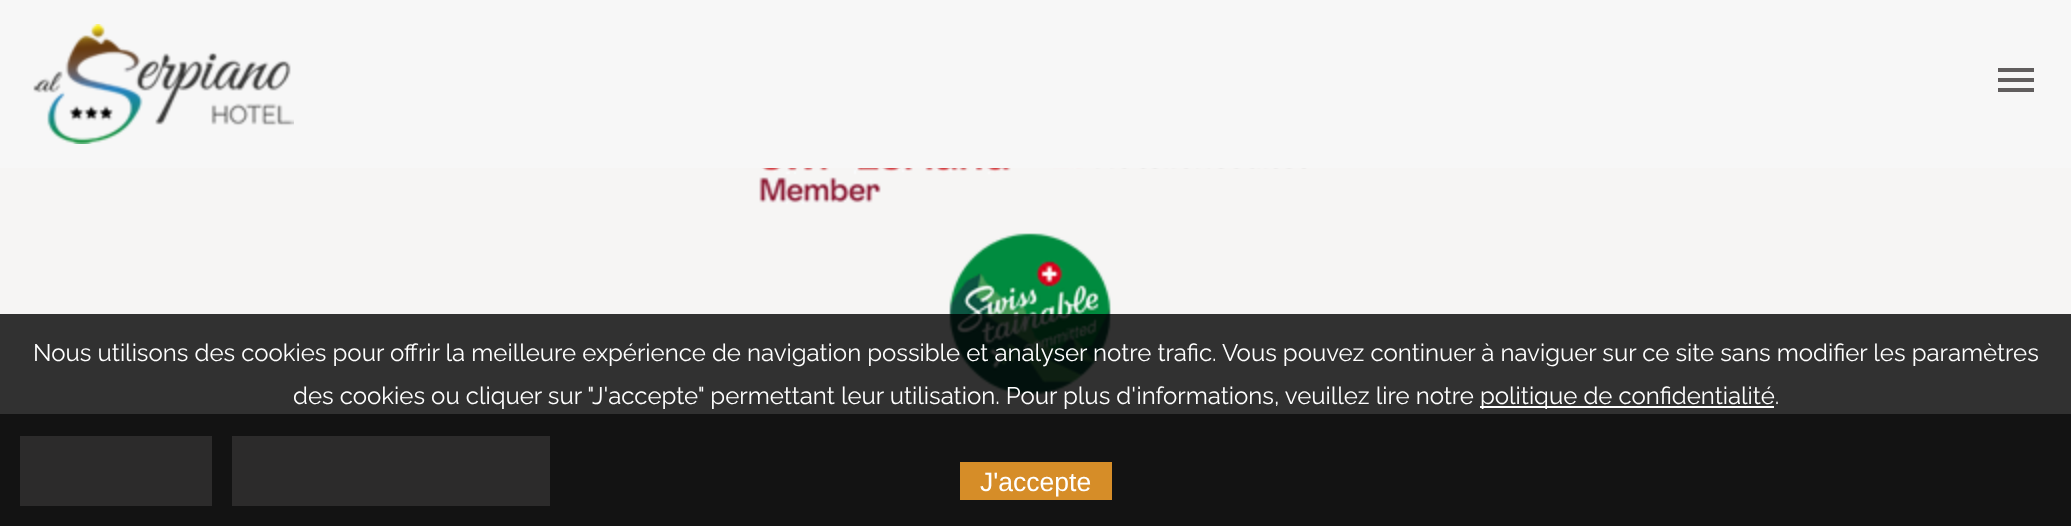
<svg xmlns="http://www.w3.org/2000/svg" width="2071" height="526">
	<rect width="100%" height="100%" fill="#F6F5F4" />
	<rect x="0" y="0" width="2071" height="168" fill="#F7F7F7" />
	<image x="33" y="24" width="261" height="120" href="assets/img1.png" />
	<rect x="1998" y="68" width="36" height="4" fill="#615E5E" />
	<rect x="1998" y="78" width="36" height="4" fill="#615E5E" />
	<rect x="1998" y="88" width="36" height="4" fill="#615E5E" />
	<image x="759" y="168" width="554" height="227" href="assets/img2.png" />
	<rect x="0" y="414" width="2071" height="112" fill="#615E5E" />
	<rect x="20" y="436" width="192" height="70" fill="#DAD8D7" />
	<rect x="232" y="436" width="318" height="70" fill="#DAD8D7" />
	<rect x="0" y="314" width="2071" height="212" fill="#000000" fill-opacity="0.8" />
	<g font-family="Raleway" font-size="24" font-weight="100" fill="#FFFFFF">
		<text x="33" y="361">Nous utilisons des cookies pour offrir la meilleure expérience de navigation possible et analyser notre trafic. Vous pouvez continuer à naviguer sur ce site sans modifier les paramètres</text>
		<text x="293" y="404">des cookies ou cliquer sur "J'accepte" permettant leur utilisation. Pour plus d'informations, veuillez lire notre</text>
	</g>
	<rect x="1480" y="406" width="294" height="2" fill="#FFFFFF" />
	<text x="1480" y="404" font-family="Raleway" font-size="24" font-weight="100" fill="#FFFFFF">politique de confidentialité.</text>
	<rect x="960" y="462" width="152" height="38" fill="#D68D28" />
	<text x="980" y="491" font-family="Liberation Sans" font-size="26.5" fill="#FFFFFF">J'accepte</text>
</svg>
